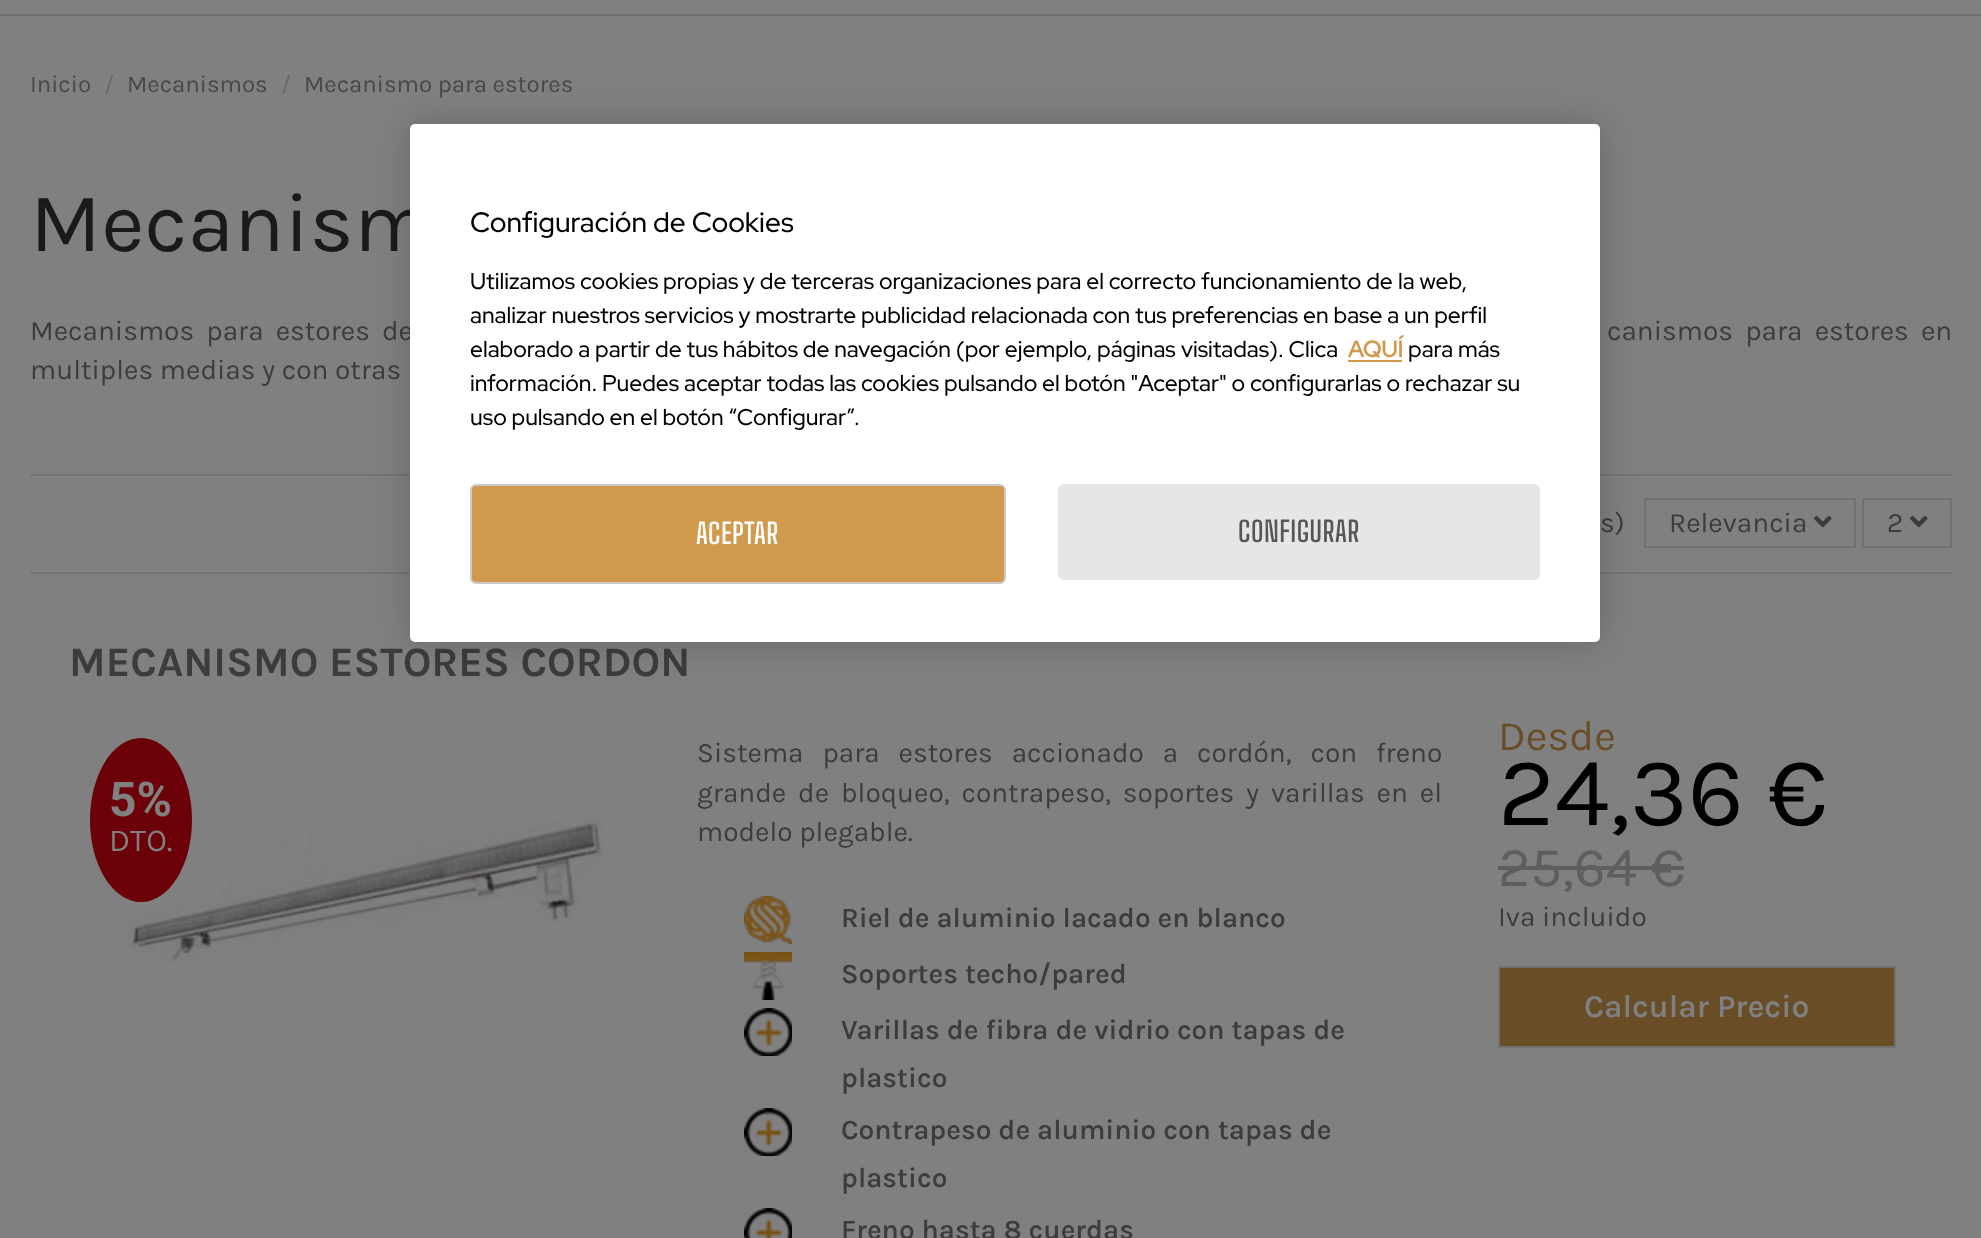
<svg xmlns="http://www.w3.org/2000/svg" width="1981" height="1238">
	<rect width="100%" height="100%" fill="#808080" />
	<rect x="0" y="14" width="1981" height="2" fill="#727272" />
	<text x="30" y="92" font-family="Karla" font-size="24" fill="#484848">Inicio</text>
	<text x="104" y="92" font-family="Karla" font-size="24" fill="#696969">/</text>
	<text x="127" y="92" font-family="Karla" font-size="24" fill="#484848">Mecanismos</text>
	<text x="281" y="92" font-family="Karla" font-size="24" fill="#696969">/</text>
	<text x="304" y="92" font-family="Karla" font-size="24" fill="#484848">Mecanismo para estores</text>
	<text x="30" y="251" font-family="Karla" font-size="84" fill="#1A1A1A">Mecanism</text>
	<g font-family="Karla" font-size="28" fill="#3C3C3C">
		<text x="30" y="340" word-spacing="5.5">Mecanismos para estores de</text>
		<text x="1607" y="340" word-spacing="5.5">canismos para estores en</text>
		<text x="30" y="379">multiples medias y con otras</text>
	</g>
	<rect x="30" y="474" width="1922" height="2" fill="#747474" />
	<rect x="30" y="572" width="1922" height="2" fill="#747474" />
	<text x="1600" y="532" font-family="Karla" font-size="28" fill="#3C3C3C">s)</text>
	<rect x="1645" y="499" width="210" height="48" fill="none" stroke="#727272" stroke-width="2" />
	<text x="1669" y="532" font-family="Karla" font-size="28" fill="#3C3C3C">Relevancia</text>
	<image x="1814" y="515" width="18" height="13" href="assets/img1.png" />
	<rect x="1863" y="499" width="88" height="48" fill="none" stroke="#727272" stroke-width="2" />
	<text x="1887" y="532" font-family="Karla" font-size="28" fill="#3C3C3C">2</text>
	<image x="1910" y="515" width="18" height="13" href="assets/img1.png" />
	<text x="69" y="676" font-family="Karla" font-size="42" font-weight="700" fill="#3C3C3C">MECANISMO ESTORES CORDON</text>
	<image x="127" y="820" width="476" height="143" href="assets/img2.png" />
	<ellipse cx="141" cy="820" rx="51" ry="82" fill="#6B0008" />
	<text x="109" y="816" font-family="Roboto" font-size="48" font-weight="700" fill="#808080">5%</text>
	<text x="109" y="851" font-family="Karla" font-size="32" fill="#808080">DTO.</text>
	<g font-family="Karla" font-size="28" fill="#3C3C3C">
		<text x="697" y="762" word-spacing="12.25">Sistema para estores accionado a cordón, con freno</text>
		<text x="697" y="802" word-spacing="5.25">grande de bloqueo, contrapeso, soportes y varillas en el</text>
		<text x="697" y="841">modelo plegable.</text>
	</g>
	<image x="744" y="896" width="48" height="48" href="assets/img3.png" />
	<text x="841" y="927" font-family="Karla" font-size="28" font-weight="600" fill="#3C3C3C">Riel de aluminio lacado en blanco</text>
	<image x="744" y="952" width="48" height="48" href="assets/img4.png" />
	<text x="841" y="983" font-family="Karla" font-size="28" font-weight="600" fill="#3C3C3C">Soportes techo/pared</text>
	<image x="744" y="1008" width="48" height="48" href="assets/img5.png" />
	<g font-family="Karla" font-size="28" font-weight="600" fill="#3C3C3C">
		<text x="841" y="1039">Varillas de fibra de vidrio con tapas de</text>
		<text x="841" y="1087">plastico</text>
	</g>
	<image x="744" y="1108" width="48" height="48" href="assets/img5.png" />
	<g font-family="Karla" font-size="28" font-weight="600" fill="#3C3C3C">
		<text x="841" y="1139">Contrapeso de aluminio con tapas de</text>
		<text x="841" y="1187">plastico</text>
	</g>
	<image x="744" y="1208" width="48" height="30" href="assets/img6.png" />
	<text x="841" y="1239" font-family="Karla" font-size="28" font-weight="600" fill="#3C3C3C">Freno hasta 8 cuerdas</text>
	<text x="1498" y="750" font-family="Karla" font-size="42" fill="#694D26">Desde</text>
	<text x="1498" y="825" font-family="Karla" font-size="98" fill="#000000">24,36 €</text>
	<text x="1498" y="886" font-family="Karla" font-size="56" fill="#5E5E5E">25,64 €</text>
	<rect x="1498" y="866" width="186" height="4" fill="#5E5E5E" />
	<text x="1498" y="926" font-family="Karla" font-size="28" fill="#3C3C3C">Iva incluido</text>
	<rect x="1499" y="967" width="396" height="80" fill="#694D26" stroke="#72716F" stroke-width="2" />
	<text x="1584" y="1017" font-family="Karla" font-size="32" font-weight="600" fill="#808080">Calcular Precio</text>
	<rect x="410" y="124" width="1190" height="518" rx="5" fill="#000000" fill-opacity="0.2" filter="blur(18px)" />
	<rect x="410" y="124" width="1190" height="518" rx="5" fill="#FFFFFF" />
	<text x="470" y="232" font-family="Red Hat Display" font-size="28" font-weight="500" fill="#000000">Configuración de Cookies</text>
	<g font-family="Red Hat Display" font-size="22.75" font-weight="500" fill="#000000">
		<text x="470" y="289">Utilizamos cookies propias y de terceras organizaciones para el correcto funcionamiento de</text>
		<text x="1398" y="289">la web,</text>
		<text x="470" y="323">analizar nuestros servicios y mostrarte publicidad relacionada con tus preferencias</text>
		<text x="1303" y="323">en base a un perfil</text>
		<text x="470" y="357">elaborado a partir de tus hábitos de navegación (por ejemplo, páginas</text>
		<text x="1181" y="357">visitadas). Clica</text>
	</g>
	<text x="1348" y="357" font-family="Red Hat Display" font-size="22.75" font-weight="700" fill="#D1994C">AQUÍ</text>
	<text x="1408" y="357" font-family="Red Hat Display" font-size="22.75" font-weight="500" fill="#000000">para más</text>
	<rect x="1348" y="360" width="54" height="2" fill="#D1994C" />
	<g font-family="Red Hat Display" font-size="22.75" font-weight="500" fill="#000000">
		<text x="470" y="391">información. Puedes aceptar todas las cookies pulsando el botón "Aceptar" o configurarlas o rechazar su</text>
		<text x="470" y="425">uso pulsando en el botón “Configurar”.</text>
	</g>
	<rect x="471" y="485" width="534" height="98" rx="5" fill="#D1994C" stroke="#CCCCCC" stroke-width="2" />
	<text x="696" y="544" font-family="Big Shoulders Text" font-size="28" font-weight="100" letter-spacing="0.5" fill="#FFFFFF">ACEPTAR</text>
	<rect x="1058" y="484" width="482" height="96" rx="6" fill="#E6E6E6" />
	<text x="1238" y="542" font-family="Big Shoulders Text" font-size="28" font-weight="100" letter-spacing="0.5" fill="#565656">CONFIGURAR</text>
</svg>
